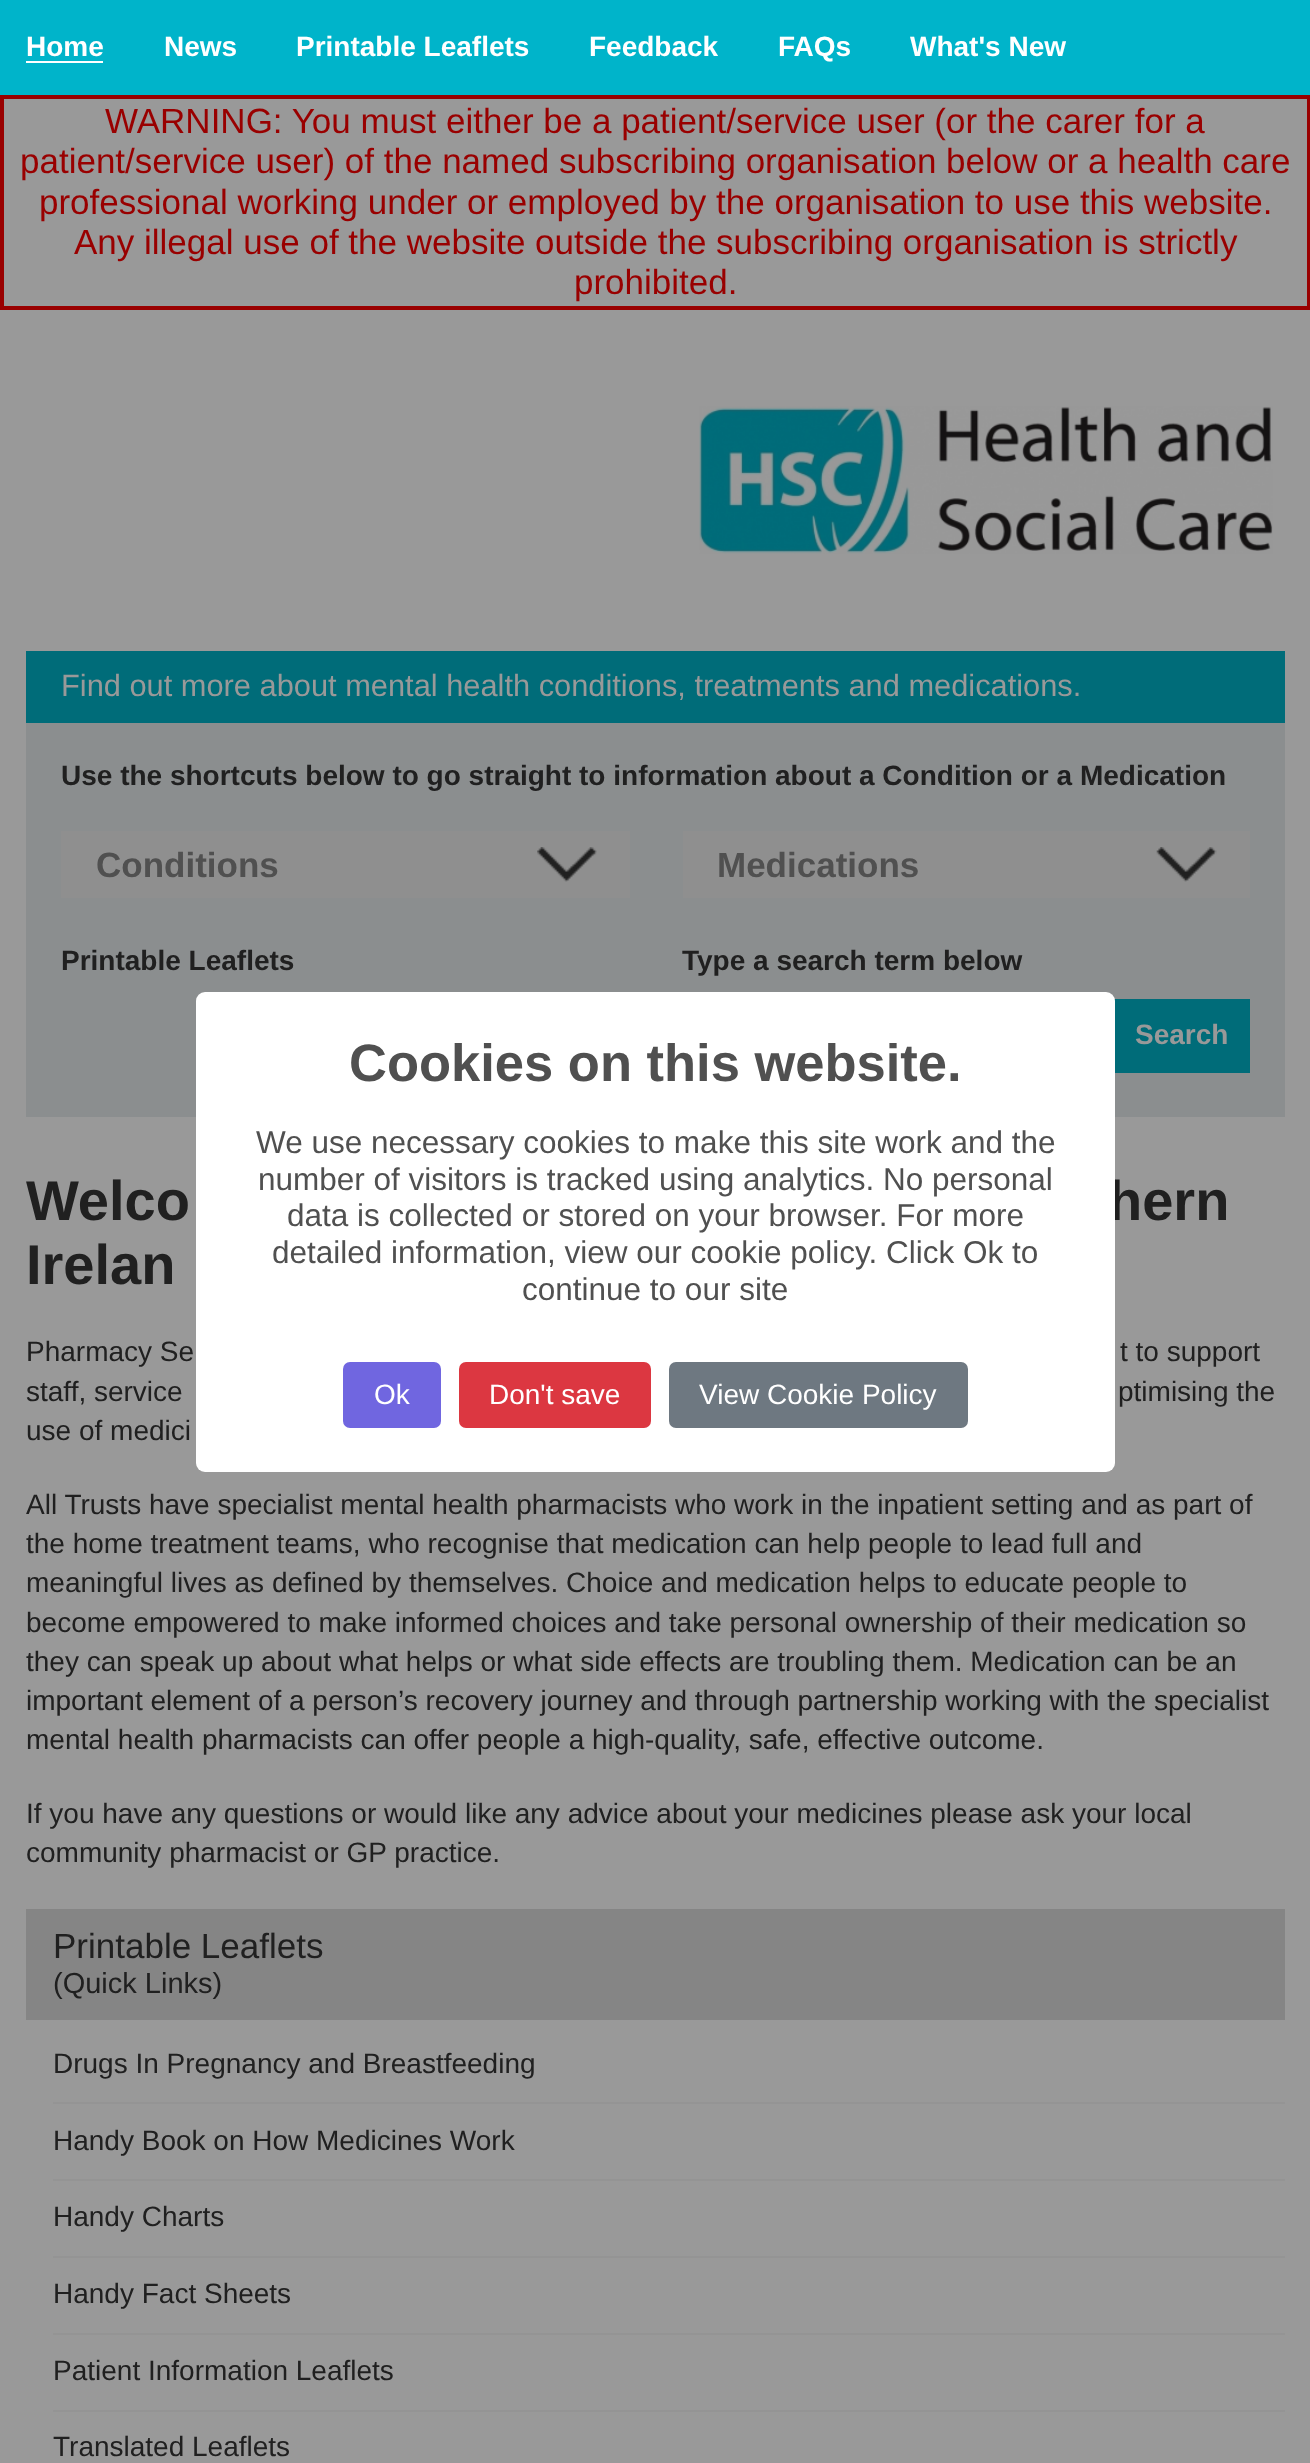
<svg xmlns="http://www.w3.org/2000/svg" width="1310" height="2463">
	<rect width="100%" height="100%" fill="#999999" />
	<rect x="0" y="0" width="1310" height="95" fill="#00B4CA" />
	<text x="26" y="56" font-family="Liberation Sans" font-size="28" font-weight="700" fill="#FFFFFF">Home</text>
	<rect x="26" y="61" width="77" height="2" fill="#FFFFFF" />
	<g font-family="Liberation Sans" font-size="28" font-weight="700" fill="#FFFFFF">
		<text x="164" y="56">News</text>
		<text x="296" y="56">Printable Leaflets</text>
		<text x="589" y="56">Feedback</text>
		<text x="778" y="56">FAQs</text>
		<text x="910" y="56">What's New</text>
	</g>
	<image x="699" y="406" width="574" height="148" href="assets/img1.png" />
	<rect x="26" y="723" width="1259" height="394" fill="#8B8E8F" />
	<rect x="26" y="651" width="1259" height="72" fill="#006C79" />
	<text x="61" y="696" font-family="Liberation Sans" font-size="30.8" fill="#999999">Find out more about mental health conditions, treatments and medications.</text>
	<text x="61" y="785" font-family="Liberation Sans" font-size="28" font-weight="700" fill="#202020">Use the shortcuts below to go straight to information about a Condition or a Medication</text>
	<rect x="61" y="831" width="569" height="67" fill="#8F8F8F" />
	<image x="537" y="847" width="60" height="35" href="assets/img2.png" />
	<text x="96" y="877" font-family="Liberation Sans" font-size="35" font-weight="700" fill="#505050">Conditions</text>
	<rect x="683" y="831" width="567" height="67" fill="#8F8F8F" />
	<image x="1156" y="847" width="61" height="35" href="assets/img3.png" />
	<text x="717" y="877" font-family="Liberation Sans" font-size="35" font-weight="700" fill="#505050">Medications</text>
	<g font-family="Liberation Sans" font-size="28" font-weight="700" fill="#202020">
		<text x="61" y="970">Printable Leaflets</text>
		<text x="682" y="970">Type a search term below</text>
	</g>
	<rect x="1114" y="999" width="136" height="74" fill="#006C79" />
	<text x="1135" y="1044" font-family="Liberation Sans" font-size="28" font-weight="700" fill="#999999">Search</text>
	<g font-family="Liberation Sans" font-size="56" font-weight="700" fill="#202020">
		<text x="26" y="1220">Welco</text>
		<text x="1108" y="1220">hern</text>
		<text x="26" y="1284">Irelan</text>
	</g>
	<g font-family="Liberation Sans" font-size="28" fill="#202020">
		<text x="26" y="1361">Pharmacy Se</text>
		<text x="1120" y="1361">t to support</text>
		<text x="26" y="1401">staff, service</text>
		<text x="1118" y="1401">ptimising the</text>
		<text x="26" y="1440">use of medici</text>
		<text x="26" y="1514">All Trusts have specialist mental health pharmacists who work in the inpatient setting and as part of</text>
		<text x="26" y="1553">the home treatment teams, who recognise that medication can help people to lead full and</text>
		<text x="26" y="1592">meaningful lives as defined by themselves. Choice and medication helps to educate people to</text>
		<text x="26" y="1632">become empowered to make informed choices and take personal ownership of their medication so</text>
		<text x="26" y="1671">they can speak up about what helps or what side effects are troubling them. Medication can be an</text>
		<text x="26" y="1710">important element of a person’s recovery journey and through partnership working with the specialist</text>
		<text x="26" y="1749">mental health pharmacists can offer people a high-quality, safe, effective outcome.</text>
		<text x="26" y="1823">If you have any questions or would like any advice about your medicines please ask your local</text>
		<text x="26" y="1862">community pharmacist or GP practice.</text>
	</g>
	<rect x="26" y="1909" width="1259" height="111" fill="#858585" />
	<text x="53" y="1958" font-family="Liberation Sans" font-size="35" fill="#202020">Printable Leaflets</text>
	<text x="53" y="1993" font-family="Liberation Sans" font-size="29" fill="#202020">(Quick Links)</text>
	<rect x="53" y="2102" width="1232" height="2" fill="#949494" />
	<text x="53" y="2073" font-family="Liberation Sans" font-size="28" fill="#202020">Drugs In Pregnancy and Breastfeeding</text>
	<rect x="53" y="2179" width="1232" height="2" fill="#949494" />
	<text x="53" y="2150" font-family="Liberation Sans" font-size="28" fill="#202020">Handy Book on How Medicines Work</text>
	<rect x="53" y="2256" width="1232" height="2" fill="#949494" />
	<text x="53" y="2226" font-family="Liberation Sans" font-size="28" fill="#202020">Handy Charts</text>
	<rect x="53" y="2333" width="1232" height="2" fill="#949494" />
	<text x="53" y="2303" font-family="Liberation Sans" font-size="28" fill="#202020">Handy Fact Sheets</text>
	<rect x="53" y="2410" width="1232" height="2" fill="#949494" />
	<g font-family="Liberation Sans" font-size="28" fill="#202020">
		<text x="53" y="2380">Patient Information Leaflets</text>
		<text x="53" y="2456">Translated Leaflets</text>
	</g>
	<rect x="2" y="97" width="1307" height="211" fill="none" stroke="#990000" stroke-width="4" />
	<g font-family="Liberation Sans" font-size="35" fill="#990000">
		<text x="105" y="133">WARNING: You must either be a patient/service user (or the carer for a</text>
		<text x="20" y="173">patient/service user) of the named subscribing organisation below or a health care</text>
		<text x="39" y="214">professional working under or employed by the organisation to use this website.</text>
		<text x="74" y="254">Any illegal use of the website outside the subscribing organisation is strictly</text>
		<text x="574" y="294">prohibited.</text>
	</g>
	<rect x="196" y="992" width="919" height="480" rx="9" fill="#FFFFFF" />
	<text x="349" y="1081" font-family="Liberation Sans" font-size="52.5" font-weight="700" fill="#505050">Cookies on this website.</text>
	<g font-family="Liberation Sans" font-size="31.5" fill="#505050">
		<text x="256" y="1153">We use necessary cookies to make this site work and the</text>
		<text x="258" y="1190">number of visitors is tracked using analytics. No personal</text>
		<text x="287" y="1226">data is collected or stored on your browser. For more</text>
		<text x="272" y="1263">detailed information, view our cookie policy. Click Ok to</text>
		<text x="522" y="1300">continue to our site</text>
	</g>
	<rect x="343" y="1362" width="98" height="66" rx="7" fill="#7066E0" />
	<text x="374" y="1404" font-family="Liberation Sans" font-size="28" fill="#FFFFFF">Ok</text>
	<rect x="459" y="1362" width="192" height="66" rx="7" fill="#DC3741" />
	<text x="489" y="1404" font-family="Liberation Sans" font-size="28" fill="#FFFFFF">Don't save</text>
	<rect x="669" y="1362" width="299" height="66" rx="7" fill="#6E7881" />
	<text x="699" y="1404" font-family="Liberation Sans" font-size="28" fill="#FFFFFF">View Cookie Policy</text>
</svg>
